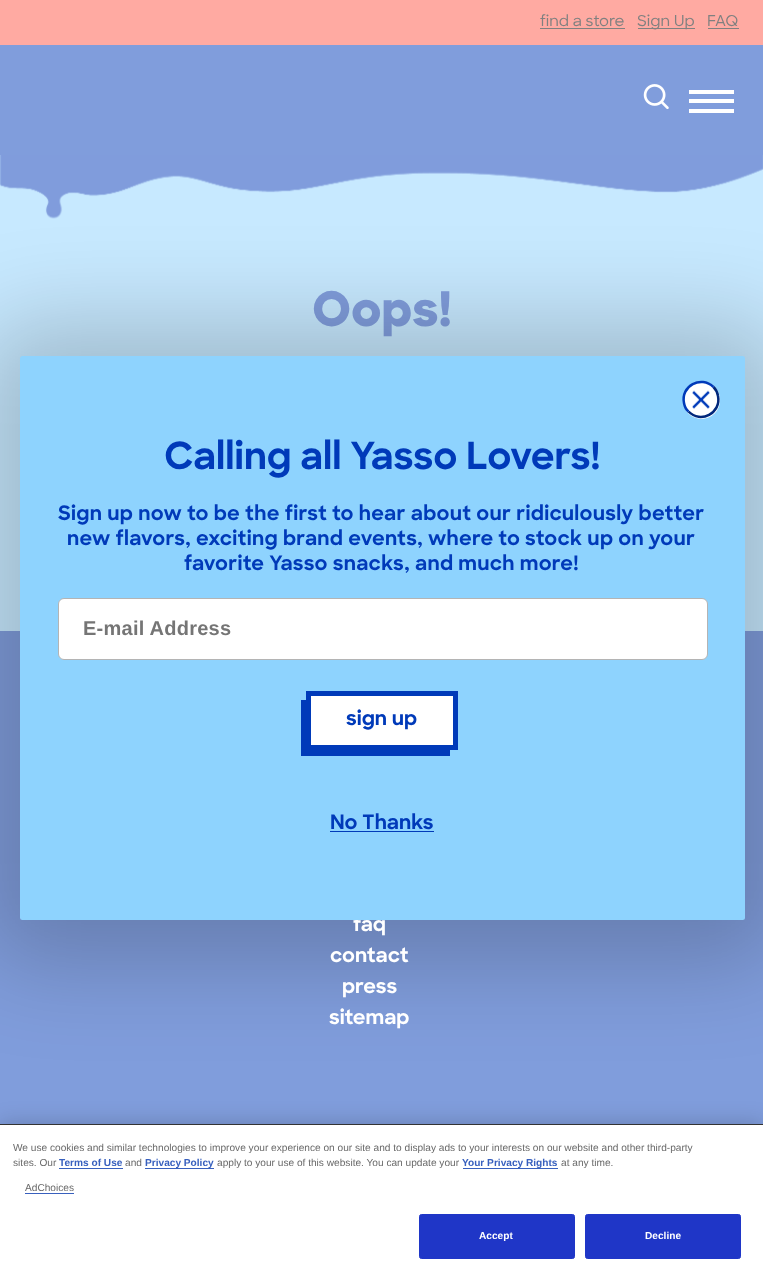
<svg xmlns="http://www.w3.org/2000/svg" width="763" height="1273">
	<rect width="100%" height="100%" fill="#C7E9FF" />
	<rect x="0" y="0" width="763" height="45" fill="#FFAAA2" />
	<text x="540" y="26" font-family="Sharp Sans" font-size="15" font-weight="500" fill="#808080">find a store</text>
	<rect x="540" y="28" width="85" height="1" fill="#808080" />
	<rect x="638" y="28" width="57" height="1" fill="#808080" />
	<g font-family="Sharp Sans" font-size="15" font-weight="500" fill="#808080">
		<text x="637" y="26">Sign Up</text>
		<text x="707" y="26">FAQ</text>
	</g>
	<rect x="708" y="28" width="31" height="1" fill="#808080" />
	<rect x="0" y="45" width="763" height="110" fill="#809DDC" />
	<image x="643" y="84" width="26" height="26" href="assets/img1.png" />
	<rect x="689" y="90" width="45" height="4" fill="#FFFFFF" />
	<rect x="689" y="99" width="45" height="4" fill="#FFFFFF" />
	<rect x="689" y="109" width="45" height="4" fill="#FFFFFF" />
	<image x="0" y="155" width="763" height="64" href="assets/img2.png" />
	<text x="312" y="326" font-family="Sharp Sans" font-size="47.5" font-weight="800" fill="#809DDC">Oops!</text>
	<rect x="0" y="631" width="763" height="493" fill="#809DDC" />
	<rect x="-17" y="324" width="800" height="639" rx="40" fill="#000000" fill-opacity="0.2" filter="blur(47px)" />
	<text x="353" y="931" font-family="Sharp Sans" font-size="20" font-weight="700" fill="#FFFFFF">faq</text>
	<rect x="20" y="356" width="725" height="564" rx="2.5" fill="#8ED3FE" />
	<rect x="683" y="381" width="37" height="38" rx="18.5" fill="#FFFFFF" />
	<image x="692" y="390" width="18" height="19" href="assets/img3.png" />
	<path d="M713.5 387C716 389.5 717.5 392.5 718 396C721.5 413 700.5 424 688.5 411.5" fill="none" stroke="#00277B" stroke-width="2.5" />
	<path d="M688.5 411.5C686 409.5 684.5 406 684 403C680.5 386 701 375 713.5 387" fill="none" stroke="#003AB9" stroke-width="2.5" />
	<text x="164" y="469" font-family="Sharp Sans" font-size="37.5" font-weight="700" fill="#003AB9">Calling all Yasso Lovers!</text>
	<g font-family="Sharp Sans" font-size="20" font-weight="700" letter-spacing="0.3" fill="#003AB9">
		<text x="58" y="520">Sign up now to be the first to hear about our ridiculously better</text>
		<text x="67" y="545">new flavors, exciting brand events, where to stock up on your</text>
		<text x="184" y="570">favorite Yasso snacks, and much more!</text>
	</g>
	<rect x="58.5" y="598.5" width="649" height="61" rx="5.5" fill="#FFFFFF" stroke="#B4B4B4" />
	<text x="83" y="635" font-family="Liberation Sans" font-size="20" font-weight="700" letter-spacing="0.25" fill="#757575">E-mail Address</text>
	<rect x="301" y="700" width="149" height="56" fill="#003AB9" />
	<rect x="308.5" y="693.5" width="147" height="54" fill="#FFFFFF" stroke="#003AB9" stroke-width="5" />
	<g font-family="Sharp Sans" font-size="20" font-weight="700" fill="#003AB9">
		<text x="346" y="725">sign up</text>
		<text x="330" y="829">No Thanks</text>
	</g>
	<rect x="330" y="831" width="104" height="1" fill="#003AB9" />
	<g font-family="Sharp Sans" font-size="20" font-weight="700" fill="#FFFFFF">
		<text x="330" y="962">contact</text>
		<text x="342" y="993">press</text>
		<text x="329" y="1024">sitemap</text>
	</g>
	<rect x="0" y="1124" width="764" height="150" fill="#000000" fill-opacity="0.2" filter="blur(11px)" />
	<rect x="0" y="1125" width="763" height="148" fill="#FFFFFF" />
	<rect x="0" y="1124" width="763" height="1" fill="#333333" />
	<g font-family="Liberation Sans" font-size="10.15" fill="#696969">
		<text x="13" y="1151">We use cookies and similar technologies to improve your experience on our site and to display ads to your interests on our website and other third-party</text>
		<text x="13" y="1166">sites. Our</text>
	</g>
	<text x="59" y="1166" font-family="Liberation Sans" font-size="10.15" font-weight="700" fill="#3860BE">Terms of Use</text>
	<rect x="59" y="1168" width="64" height="1" fill="#3860BE" />
	<text x="125" y="1166" font-family="Liberation Sans" font-size="10.15" fill="#696969">and</text>
	<rect x="145" y="1168" width="69" height="1" fill="#3860BE" />
	<text x="145" y="1166" font-family="Liberation Sans" font-size="10.15" font-weight="700" fill="#3860BE">Privacy Policy</text>
	<text x="217" y="1166" font-family="Liberation Sans" font-size="10.15" fill="#696969">apply to your use of this website. You can update your</text>
	<rect x="463" y="1168" width="95" height="1" fill="#3860BE" />
	<text x="462" y="1166" font-family="Liberation Sans" font-size="10.15" font-weight="700" fill="#3860BE">Your Privacy Rights</text>
	<g font-family="Liberation Sans" font-size="10.15" fill="#696969">
		<text x="561" y="1166">at any time.</text>
		<text x="25" y="1191">AdChoices</text>
	</g>
	<rect x="25" y="1193" width="49" height="1" fill="#3860BE" />
	<rect x="419.5" y="1214.5" width="155" height="44" rx="2" fill="#1F36C7" stroke="#1F36C7" />
	<text x="479" y="1239" font-family="Liberation Sans" font-size="10.15" font-weight="700" fill="#FFFFFF">Accept</text>
	<rect x="585.5" y="1214.5" width="155" height="44" rx="2" fill="#1F36C7" stroke="#1F36C7" />
	<text x="645" y="1239" font-family="Liberation Sans" font-size="10.15" font-weight="700" fill="#FFFFFF">Decline</text>
</svg>
